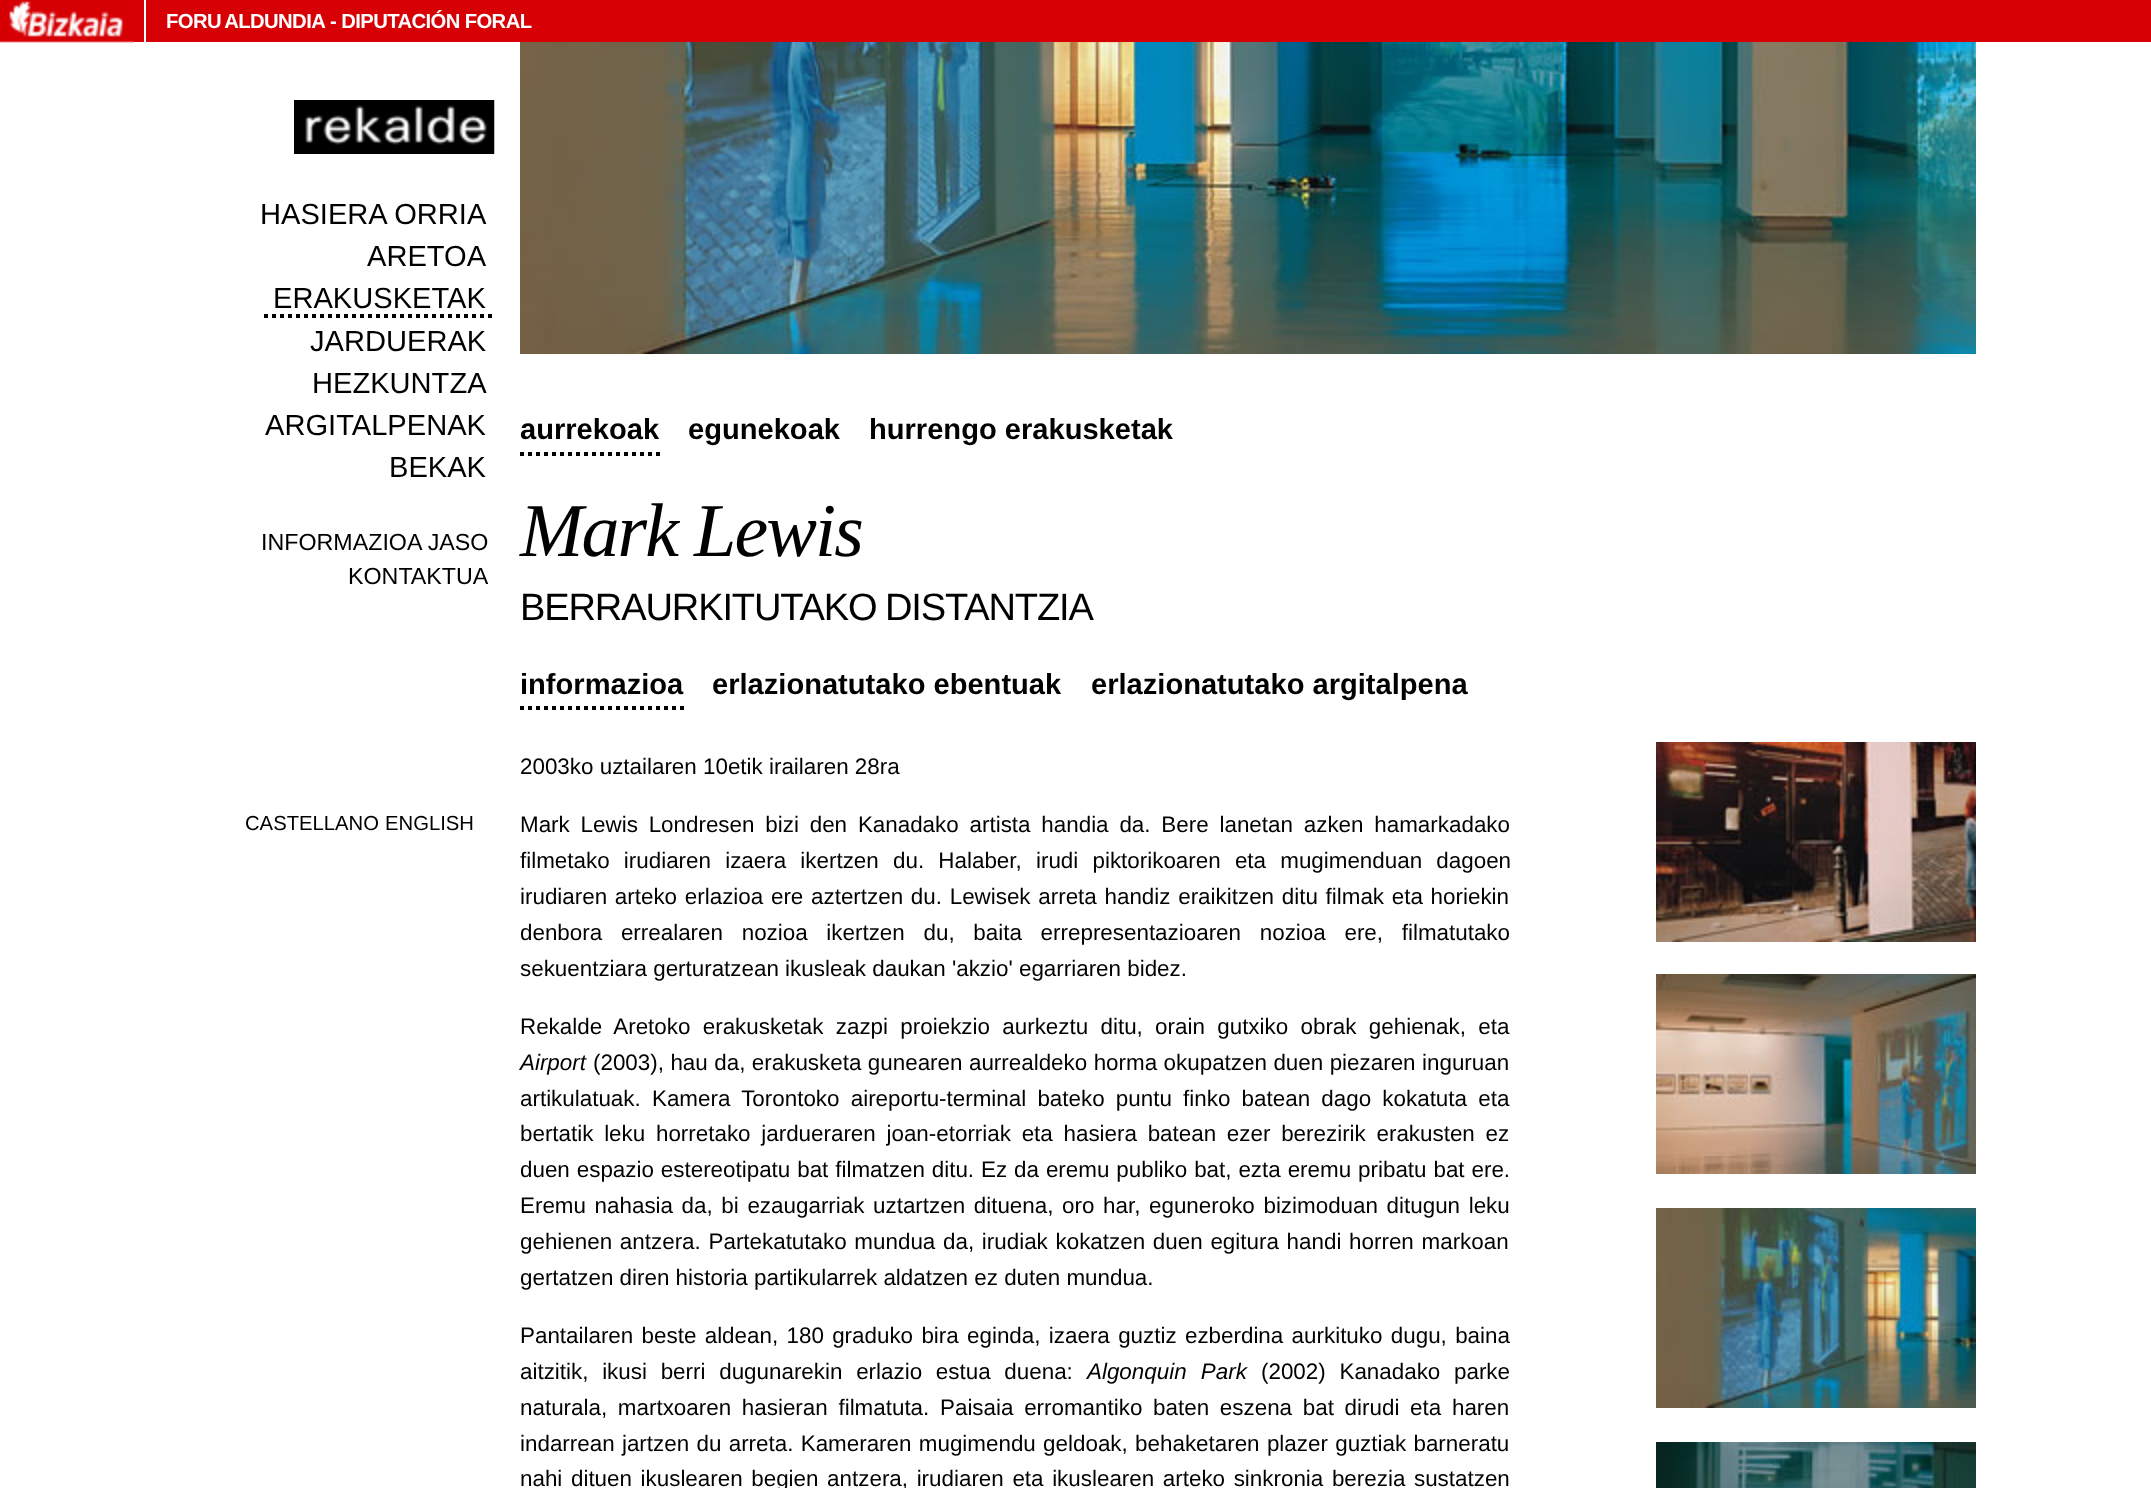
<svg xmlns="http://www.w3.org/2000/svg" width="2151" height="1488">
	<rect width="100%" height="100%" fill="#FFFFFF" />
	<rect x="134" y="0" width="2017" height="42" fill="#D70004" />
	<image x="0" y="0" width="134" height="43" href="assets/img1.png" />
	<rect x="144" y="0" width="2" height="48" fill="#FFFFFF" />
	<g font-family="Liberation Sans" font-size="20.25" font-weight="700" letter-spacing="-0.6" fill="#FFFFFF">
		<text x="166" y="28" word-spacing="-1">FORU ALDUNDIA</text>
		<text x="330" y="28">- DIPUTACIÓN FORAL</text>
	</g>
	<image x="294" y="100" width="200" height="54" href="assets/img2.png" />
	<rect x="494" y="100" width="1" height="54" fill="#BFBFBF" />
	<g font-family="Liberation Sans" font-size="29.1" fill="#000000">
		<text x="260" y="224">HASIERA ORRIA</text>
		<text x="367" y="266">ARETOA</text>
		<text x="273" y="308">ERAKUSKETAK</text>
	</g>
	<path d="M264 316H494" fill="none" stroke="#000000" stroke-width="4" stroke-dasharray="4 4" />
	<g font-family="Liberation Sans" font-size="29.1" fill="#000000">
		<text x="310" y="351">JARDUERAK</text>
		<text x="312" y="393">HEZKUNTZA</text>
		<text x="265" y="435">ARGITALPENAK</text>
		<text x="389" y="477">BEKAK</text>
	</g>
	<g font-family="Liberation Sans" font-size="23.25" fill="#000000">
		<text x="261" y="550">INFORMAZIOA JASO</text>
		<text x="348" y="584">KONTAKTUA</text>
	</g>
	<image x="520" y="42" width="1456" height="312" href="assets/img3.png" />
	<text x="520" y="439" font-family="Liberation Sans" font-size="29.1" font-weight="700" fill="#000000">aurrekoak</text>
	<path d="M520 454H660" fill="none" stroke="#000000" stroke-width="4" stroke-dasharray="4 4" />
	<g font-family="Liberation Sans" font-size="29.1" font-weight="700" fill="#000000">
		<text x="688" y="439">egunekoak</text>
		<text x="869" y="439">hurrengo erakusketak</text>
	</g>
	<text x="520" y="556" font-family="Liberation Serif" font-size="76" font-style="italic" letter-spacing="-1.9" fill="#000000">Mark Lewis</text>
	<text x="520" y="620" word-spacing="-1" font-family="Liberation Sans" font-size="38.1" letter-spacing="-1.15" fill="#000000">BERRAURKITUTAKO DISTANTZIA</text>
	<text x="520" y="694" font-family="Liberation Sans" font-size="29.1" font-weight="700" fill="#000000">informazioa</text>
	<path d="M520 708H684" fill="none" stroke="#000000" stroke-width="4" stroke-dasharray="4 4" />
	<g font-family="Liberation Sans" font-size="29.1" font-weight="700" fill="#000000">
		<text x="712" y="694">erlazionatutako ebentuak</text>
		<text x="1091" y="694">erlazionatutako argitalpena</text>
	</g>
	<g font-family="Liberation Sans" font-size="22.4" fill="#000000">
		<text x="520" y="774">2003ko uztailaren 10etik irailaren 28ra</text>
		<text x="520" y="832" word-spacing="4.6">Mark Lewis Londresen bizi den Kanadako artista handia da. Bere lanetan azken hamarkadako</text>
		<text x="520" y="868" word-spacing="8">filmetako irudiaren izaera ikertzen du. Halaber, irudi piktorikoaren eta mugimenduan dagoen</text>
		<text x="520" y="904" word-spacing="1.5">irudiaren arteko erlazioa ere aztertzen du. Lewisek arreta handiz eraikitzen ditu filmak eta horiekin</text>
		<text x="520" y="940" word-spacing="12.5">denbora errealaren nozioa ikertzen du, baita errepresentazioaren nozioa ere, filmatutako</text>
		<text x="520" y="976">sekuentziara gerturatzean ikusleak daukan 'akzio' egarriaren bidez.</text>
		<text x="520" y="1034" word-spacing="6.1">Rekalde Aretoko erakusketak zazpi proiekzio aurkeztu ditu, orain gutxiko obrak gehienak, eta</text>
	</g>
	<text x="520" y="1070" font-family="Liberation Sans" font-size="22.4" font-style="italic" fill="#000000">Airport</text>
	<g font-family="Liberation Sans" font-size="22.4" fill="#000000">
		<text x="593" y="1070" word-spacing="0.25">(2003), hau da, erakusketa gunearen aurrealdeko horma okupatzen duen piezaren inguruan</text>
		<text x="520" y="1106" word-spacing="5">artikulatuak. Kamera Torontoko aireportu-terminal bateko puntu finko batean dago kokatuta eta</text>
		<text x="520" y="1141" word-spacing="4.5">bertatik leku horretako jardueraren joan-etorriak eta hasiera batean ezer berezirik erakusten ez</text>
		<text x="520" y="1177" word-spacing="0.7">duen espazio estereotipatu bat filmatzen ditu. Ez da eremu publiko bat, ezta eremu pribatu bat ere.</text>
		<text x="520" y="1213" word-spacing="2.4">Eremu nahasia da, bi ezaugarriak uztartzen dituena, oro har, eguneroko bizimoduan ditugun leku</text>
		<text x="520" y="1249" word-spacing="1.5">gehienen antzera. Partekatutako mundua da, irudiak kokatzen duen egitura handi horren markoan</text>
		<text x="520" y="1285">gertatzen diren historia partikularrek aldatzen ez duten mundua.</text>
		<text x="520" y="1343" word-spacing="2.1">Pantailaren beste aldean, 180 graduko bira eginda, izaera guztiz ezberdina aurkituko dugu, baina</text>
		<text x="520" y="1379" word-spacing="7.5">aitzitik, ikusi berri dugunarekin erlazio estua duena:</text>
	</g>
	<text x="1087" y="1379" word-spacing="8" font-family="Liberation Sans" font-size="22.4" font-style="italic" fill="#000000">Algonquin Park</text>
	<g font-family="Liberation Sans" font-size="22.4" fill="#000000">
		<text x="1261" y="1379" word-spacing="7.5">(2002) Kanadako parke</text>
		<text x="520" y="1415" word-spacing="4.5">naturala, martxoaren hasieran filmatuta. Paisaia erromantiko baten eszena bat dirudi eta haren</text>
		<text x="520" y="1451" word-spacing="1.1">indarrean jartzen du arreta. Kameraren mugimendu geldoak, behaketaren plazer guztiak barneratu</text>
		<text x="520" y="1486" word-spacing="2.4">nahi dituen ikuslearen begien antzera, irudiaren eta ikuslearen arteko sinkronia berezia sustatzen</text>
	</g>
	<image x="1656" y="742" width="320" height="200" href="assets/img4.png" />
	<image x="1656" y="974" width="320" height="200" href="assets/img5.png" />
	<image x="1656" y="1208" width="320" height="200" href="assets/img6.png" />
	<image x="1656" y="1442" width="320" height="46" href="assets/img7.png" />
	<g font-family="Liberation Sans" font-size="20.25" fill="#000000">
		<text x="245" y="830">CASTELLANO</text>
		<text x="385" y="830">ENGLISH</text>
	</g>
</svg>
